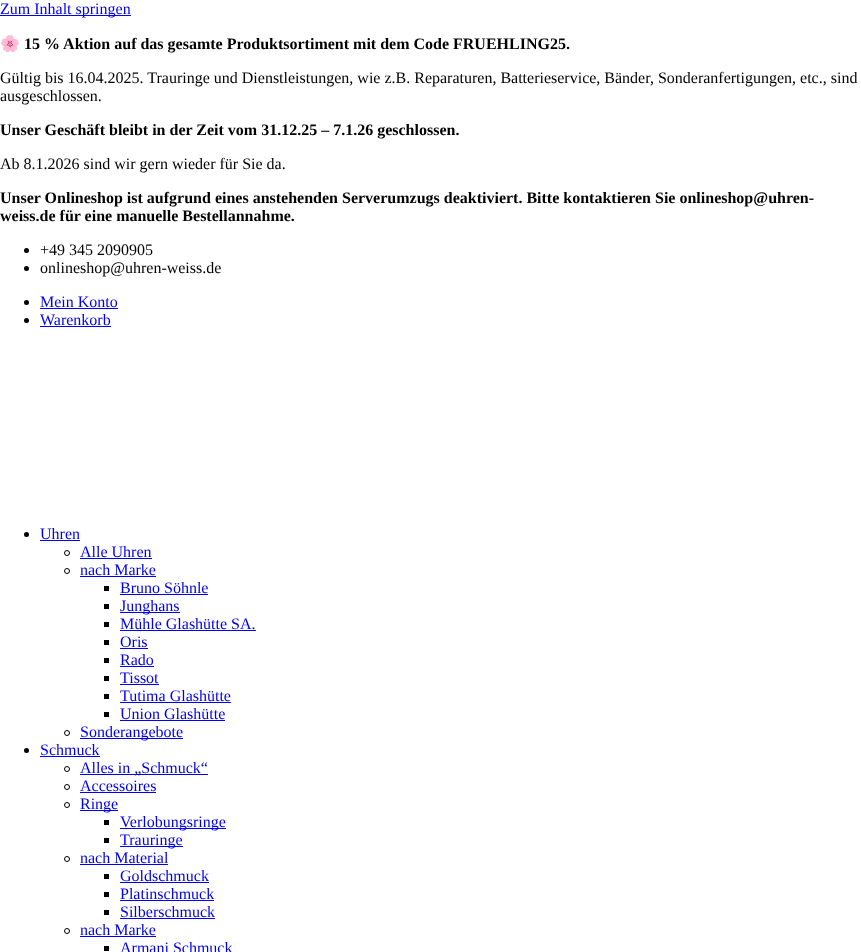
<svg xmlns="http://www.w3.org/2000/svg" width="861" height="952">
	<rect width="100%" height="100%" fill="#FFFFFF" />
	<rect x="0" y="15" width="131" height="1" fill="#0000EE" />
	<text x="0" y="14" font-family="Liberation Serif" font-size="16" fill="#0000EE">Zum Inhalt springen</text>
	<text x="0" y="49" font-family="Noto Color Emoji" font-size="16" fill="#000000">🌸</text>
	<text x="24" y="49" font-family="Liberation Serif" font-size="16" font-weight="700" fill="#000000">15 % Aktion auf das gesamte Produktsortiment mit dem Code FRUEHLING25.</text>
	<g font-family="Liberation Serif" font-size="16" fill="#000000">
		<text x="0" y="83">Gültig bis 16.04.2025. Trauringe und Dienstleistungen, wie z.B. Reparaturen, Batterieservice, Bänder, Sonderanfertigungen, etc., sind</text>
		<text x="0" y="101">ausgeschlossen.</text>
	</g>
	<text x="0" y="135" font-family="Liberation Serif" font-size="16" font-weight="700" fill="#000000">Unser Geschäft bleibt in der Zeit vom 31.12.25 – 7.1.26 geschlossen.</text>
	<text x="0" y="169" font-family="Liberation Serif" font-size="16" fill="#000000">Ab 8.1.2026 sind wir gern wieder für Sie da.</text>
	<g font-family="Liberation Serif" font-size="16" font-weight="700" fill="#000000">
		<text x="0" y="203">Unser Onlineshop ist aufgrund eines anstehenden Serverumzugs deaktiviert. Bitte kontaktieren Sie onlineshop@uhren-</text>
		<text x="0" y="221">weiss.de für eine manuelle Bestellannahme.</text>
	</g>
	<circle cx="26.5" cy="250.5" r="2.5" fill="#000000" />
	<text x="40" y="255" font-family="Liberation Serif" font-size="16" fill="#000000">+49 345 2090905</text>
	<circle cx="26.5" cy="268.5" r="2.5" fill="#000000" />
	<text x="40" y="273" font-family="Liberation Serif" font-size="16" fill="#000000">onlineshop@uhren-weiss.de</text>
	<circle cx="26.5" cy="302.5" r="2.5" fill="#000000" />
	<text x="40" y="307" font-family="Liberation Serif" font-size="16" fill="#0000EE">Mein Konto</text>
	<rect x="40" y="308" width="78" height="1" fill="#0000EE" />
	<circle cx="26.5" cy="320.5" r="2.5" fill="#000000" />
	<text x="40" y="325" font-family="Liberation Serif" font-size="16" fill="#0000EE">Warenkorb</text>
	<rect x="40" y="326" width="71" height="1" fill="#0000EE" />
	<circle cx="26.5" cy="534.5" r="2.5" fill="#000000" />
	<text x="40" y="539" font-family="Liberation Serif" font-size="16" fill="#0000EE">Uhren</text>
	<rect x="40" y="540" width="40" height="1" fill="#0000EE" />
	<circle cx="67" cy="553" r="2.5" fill="none" stroke="#000000" />
	<text x="80" y="557" font-family="Liberation Serif" font-size="16" fill="#0000EE">Alle Uhren</text>
	<rect x="80" y="558" width="72" height="1" fill="#0000EE" />
	<circle cx="67" cy="571" r="2.5" fill="none" stroke="#000000" />
	<text x="80" y="575" font-family="Liberation Serif" font-size="16" fill="#0000EE">nach Marke</text>
	<rect x="80" y="576" width="76" height="1" fill="#0000EE" />
	<rect x="104" y="586" width="5" height="5" fill="#000000" />
	<text x="120" y="593" font-family="Liberation Serif" font-size="16" fill="#0000EE">Bruno Söhnle</text>
	<rect x="120" y="594" width="88" height="1" fill="#0000EE" />
	<rect x="104" y="604" width="5" height="5" fill="#000000" />
	<rect x="120" y="612" width="60" height="1" fill="#0000EE" />
	<text x="120" y="611" font-family="Liberation Serif" font-size="16" fill="#0000EE">Junghans</text>
	<rect x="104" y="622" width="5" height="5" fill="#000000" />
	<text x="120" y="629" font-family="Liberation Serif" font-size="16" fill="#0000EE">Mühle Glashütte SA.</text>
	<rect x="120" y="630" width="136" height="1" fill="#0000EE" />
	<rect x="104" y="640" width="5" height="5" fill="#000000" />
	<text x="120" y="647" font-family="Liberation Serif" font-size="16" fill="#0000EE">Oris</text>
	<rect x="120" y="648" width="28" height="1" fill="#0000EE" />
	<rect x="104" y="658" width="5" height="5" fill="#000000" />
	<text x="120" y="665" font-family="Liberation Serif" font-size="16" fill="#0000EE">Rado</text>
	<rect x="120" y="666" width="34" height="1" fill="#0000EE" />
	<rect x="104" y="676" width="5" height="5" fill="#000000" />
	<text x="120" y="683" font-family="Liberation Serif" font-size="16" fill="#0000EE">Tissot</text>
	<rect x="120" y="684" width="39" height="1" fill="#0000EE" />
	<rect x="104" y="694" width="5" height="5" fill="#000000" />
	<text x="120" y="701" font-family="Liberation Serif" font-size="16" fill="#0000EE">Tutima Glashütte</text>
	<rect x="120" y="702" width="111" height="1" fill="#0000EE" />
	<rect x="104" y="712" width="5" height="5" fill="#000000" />
	<text x="120" y="719" font-family="Liberation Serif" font-size="16" fill="#0000EE">Union Glashütte</text>
	<rect x="120" y="720" width="105" height="1" fill="#0000EE" />
	<circle cx="67" cy="733" r="2.5" fill="none" stroke="#000000" />
	<rect x="80" y="738" width="103" height="1" fill="#0000EE" />
	<text x="80" y="737" font-family="Liberation Serif" font-size="16" fill="#0000EE">Sonderangebote</text>
	<circle cx="26.5" cy="750.5" r="2.5" fill="#000000" />
	<text x="40" y="755" font-family="Liberation Serif" font-size="16" fill="#0000EE">Schmuck</text>
	<rect x="40" y="756" width="60" height="1" fill="#0000EE" />
	<circle cx="67" cy="769" r="2.5" fill="none" stroke="#000000" />
	<rect x="80" y="774" width="128" height="1" fill="#0000EE" />
	<text x="80" y="773" font-family="Liberation Serif" font-size="16" fill="#0000EE">Alles in „Schmuck“</text>
	<circle cx="67" cy="787" r="2.5" fill="none" stroke="#000000" />
	<text x="80" y="791" font-family="Liberation Serif" font-size="16" fill="#0000EE">Accessoires</text>
	<rect x="80" y="792" width="76" height="1" fill="#0000EE" />
	<circle cx="67" cy="805" r="2.5" fill="none" stroke="#000000" />
	<rect x="80" y="810" width="38" height="1" fill="#0000EE" />
	<text x="80" y="809" font-family="Liberation Serif" font-size="16" fill="#0000EE">Ringe</text>
	<rect x="104" y="820" width="5" height="5" fill="#000000" />
	<rect x="120" y="828" width="106" height="1" fill="#0000EE" />
	<text x="120" y="827" font-family="Liberation Serif" font-size="16" fill="#0000EE">Verlobungsringe</text>
	<rect x="104" y="838" width="5" height="5" fill="#000000" />
	<rect x="120" y="846" width="63" height="1" fill="#0000EE" />
	<text x="120" y="845" font-family="Liberation Serif" font-size="16" fill="#0000EE">Trauringe</text>
	<circle cx="67" cy="859" r="2.5" fill="none" stroke="#000000" />
	<text x="80" y="863" font-family="Liberation Serif" font-size="16" fill="#0000EE">nach Material</text>
	<rect x="80" y="864" width="88" height="1" fill="#0000EE" />
	<rect x="104" y="874" width="5" height="5" fill="#000000" />
	<text x="120" y="881" font-family="Liberation Serif" font-size="16" fill="#0000EE">Goldschmuck</text>
	<rect x="120" y="882" width="89" height="1" fill="#0000EE" />
	<rect x="104" y="892" width="5" height="5" fill="#000000" />
	<text x="120" y="899" font-family="Liberation Serif" font-size="16" fill="#0000EE">Platinschmuck</text>
	<rect x="120" y="900" width="94" height="1" fill="#0000EE" />
	<rect x="104" y="910" width="5" height="5" fill="#000000" />
	<text x="120" y="917" font-family="Liberation Serif" font-size="16" fill="#0000EE">Silberschmuck</text>
	<rect x="120" y="918" width="95" height="1" fill="#0000EE" />
	<circle cx="67" cy="931" r="2.5" fill="none" stroke="#000000" />
	<text x="80" y="935" font-family="Liberation Serif" font-size="16" fill="#0000EE">nach Marke</text>
	<rect x="80" y="936" width="76" height="1" fill="#0000EE" />
	<rect x="104" y="946" width="5" height="5" fill="#000000" />
	<text x="120" y="953" font-family="Liberation Serif" font-size="16" fill="#0000EE">Armani Schmuck</text>
</svg>
